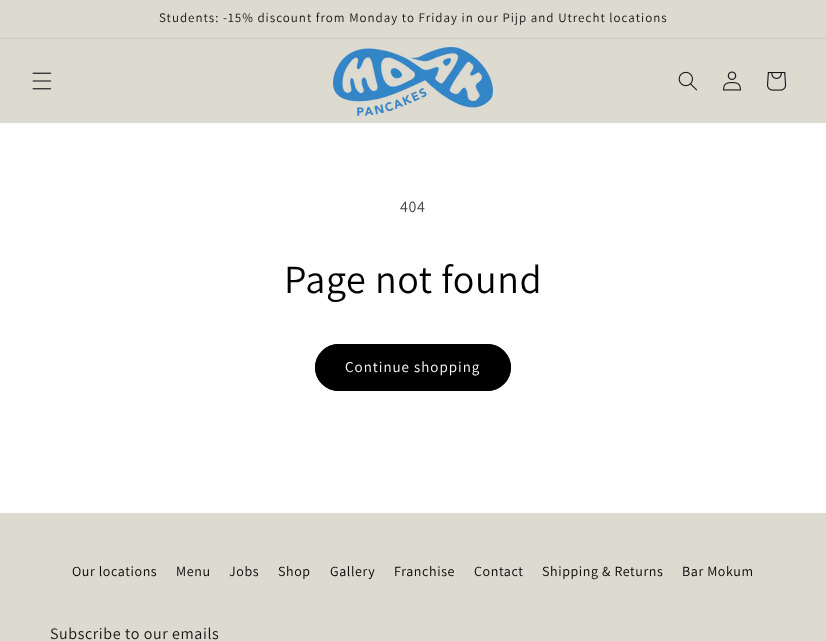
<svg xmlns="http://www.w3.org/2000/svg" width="826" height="641">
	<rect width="100%" height="100%" fill="#FFFFFF" />
	<rect x="0" y="0" width="826" height="38" fill="#DDDACF" />
	<rect x="0" y="38" width="826" height="1" fill="#CDCAC0" />
	<text x="159" y="22" font-family="Assistant" font-size="13" letter-spacing="1" fill="#121212">Students: -15% discount from Monday to Friday in our Pijp and Utrecht locations</text>
	<rect x="0" y="39" width="826" height="84" fill="#DDDACF" />
	<image x="32" y="72" width="20" height="18" href="assets/img1.png" />
	<image x="333" y="47" width="160" height="69" href="assets/img2.png" />
	<image x="678" y="71" width="19" height="20" href="assets/img3.png" />
	<image x="723" y="71" width="18" height="20" href="assets/img4.png" />
	<image x="767" y="72" width="20" height="19" href="assets/img5.png" />
	<text x="400" y="212" font-family="Assistant" font-size="16" letter-spacing="0.6" fill="#404040">404</text>
	<text x="284" y="293" font-family="Assistant" font-size="40" letter-spacing="0.6" fill="#000000">Page not found</text>
	<rect x="315" y="344" width="196" height="47" rx="23.5" fill="#000000" />
	<rect x="315.5" y="344.5" width="195" height="46" rx="23" fill="none" stroke="#000000" />
	<text x="345" y="372" font-family="Assistant" font-size="15" letter-spacing="1" fill="#FFFFFF">Continue shopping</text>
	<rect x="0" y="513" width="826" height="128" fill="#DDDACF" />
	<g font-family="Assistant" font-size="14" letter-spacing="0.6" fill="#000000">
		<text x="72" y="576">Our locations</text>
		<text x="176" y="576">Menu</text>
		<text x="229" y="576">Jobs</text>
		<text x="278" y="576">Shop</text>
		<text x="330" y="576">Gallery</text>
		<text x="394" y="576">Franchise</text>
		<text x="474" y="576">Contact</text>
		<text x="542" y="576">Shipping &amp; Returns</text>
		<text x="682" y="576">Bar Mokum</text>
	</g>
	<text x="50" y="639" font-family="Assistant" font-size="16" letter-spacing="0.6" fill="#121212">Subscribe to our emails</text>
</svg>
